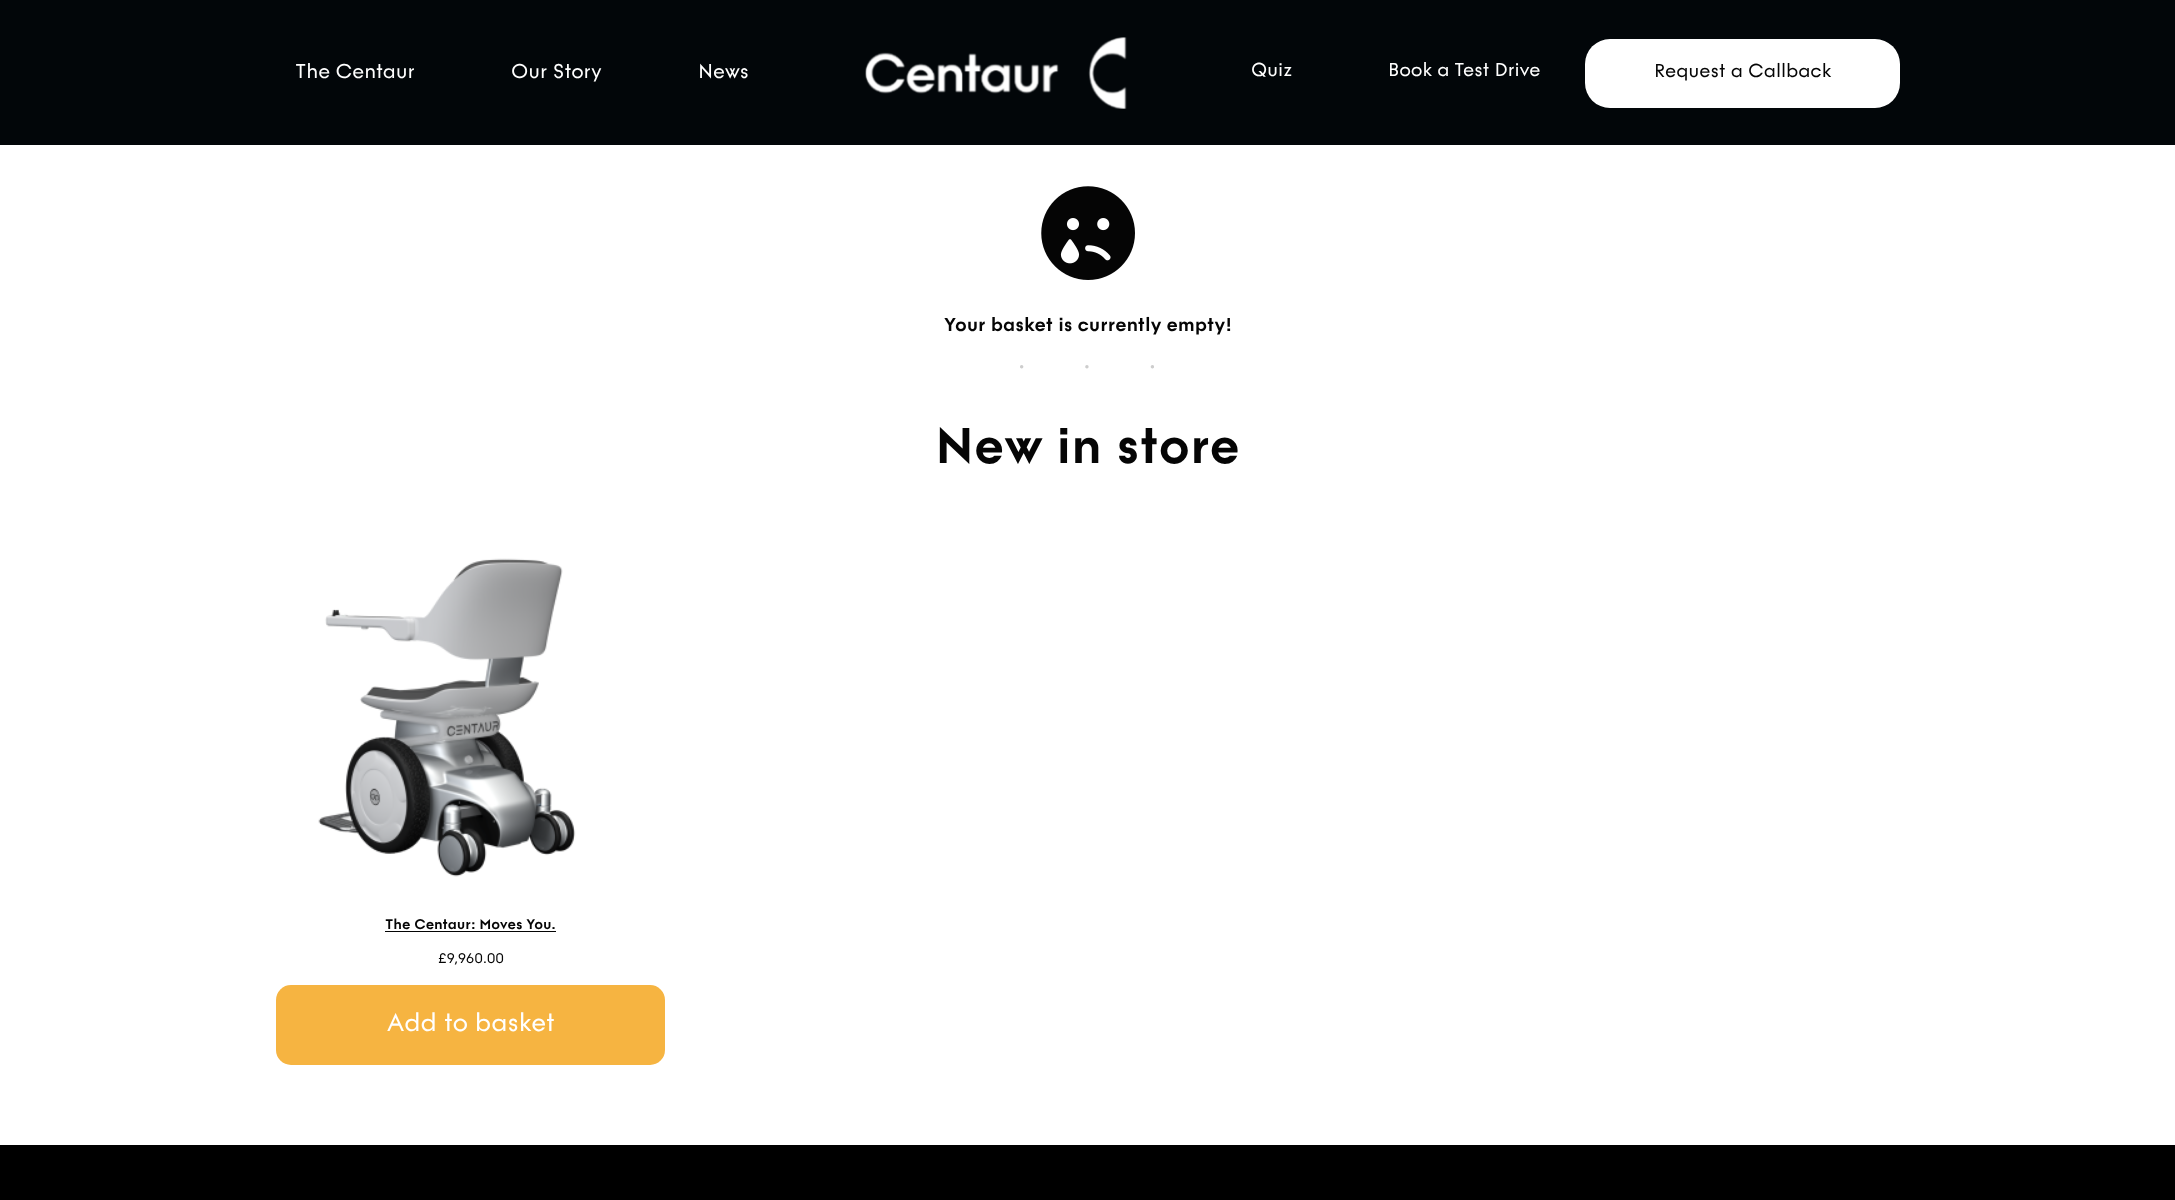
<svg xmlns="http://www.w3.org/2000/svg" width="2175" height="1200">
	<rect width="100%" height="100%" fill="#FFFFFF" />
	<rect x="0" y="0" width="2175" height="145" fill="#020609" />
	<g font-family="'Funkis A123'" font-size="20" letter-spacing="-0.1" fill="#FFFFFF">
		<text x="295" y="78">The Centaur</text>
		<text x="511" y="78">Our Story</text>
		<text x="698" y="78">News</text>
	</g>
	<image x="865" y="37" width="262" height="72" href="assets/img1.png" />
	<g font-family="'Funkis A123'" font-size="18.75" letter-spacing="-0.1" fill="#FFFFFF">
		<text x="1251" y="76">Quiz</text>
		<text x="1388" y="76">Book a Test Drive</text>
	</g>
	<rect x="1585" y="39" width="315" height="69" rx="25" fill="#FFFFFF" />
	<text x="1654" y="77" font-family="'Funkis A123'" font-size="18.75" letter-spacing="-0.1" fill="#050505">Request a Callback</text>
	<image x="1041" y="186" width="94" height="94" href="assets/img2.png" />
	<text x="944" y="331" font-family="'Funkis A123'" font-size="18.75" font-weight="700" letter-spacing="-0.1" fill="#050505">Your basket is currently empty!</text>
	<text x="1017" y="376" font-family="Liberation Serif" font-size="28" letter-spacing="56" fill="#CDCDCD">···</text>
	<text x="935" y="463" font-family="'Funkis A123'" font-size="50" font-weight="700" letter-spacing="-0.1" fill="#050505">New in store</text>
	<image x="318" y="558" width="258" height="319" href="assets/img3.png" />
	<text x="385" y="929" font-family="'Funkis A123'" font-size="14" font-weight="700" letter-spacing="-0.1" fill="#050505">The Centaur: Moves You.</text>
	<rect x="385" y="931" width="171" height="1" fill="#050505" />
	<text x="438" y="963" font-family="'Funkis A123'" font-size="14" letter-spacing="-0.1" fill="#050505">£9,960.00</text>
	<rect x="276" y="985" width="389" height="80" rx="15" fill="#F6B441" />
	<text x="387" y="1031" font-family="'Funkis A123'" font-size="25" letter-spacing="-0.1" fill="#FFFFFF">Add to basket</text>
	<rect x="0" y="1145" width="2175" height="55" fill="#000000" />
</svg>
